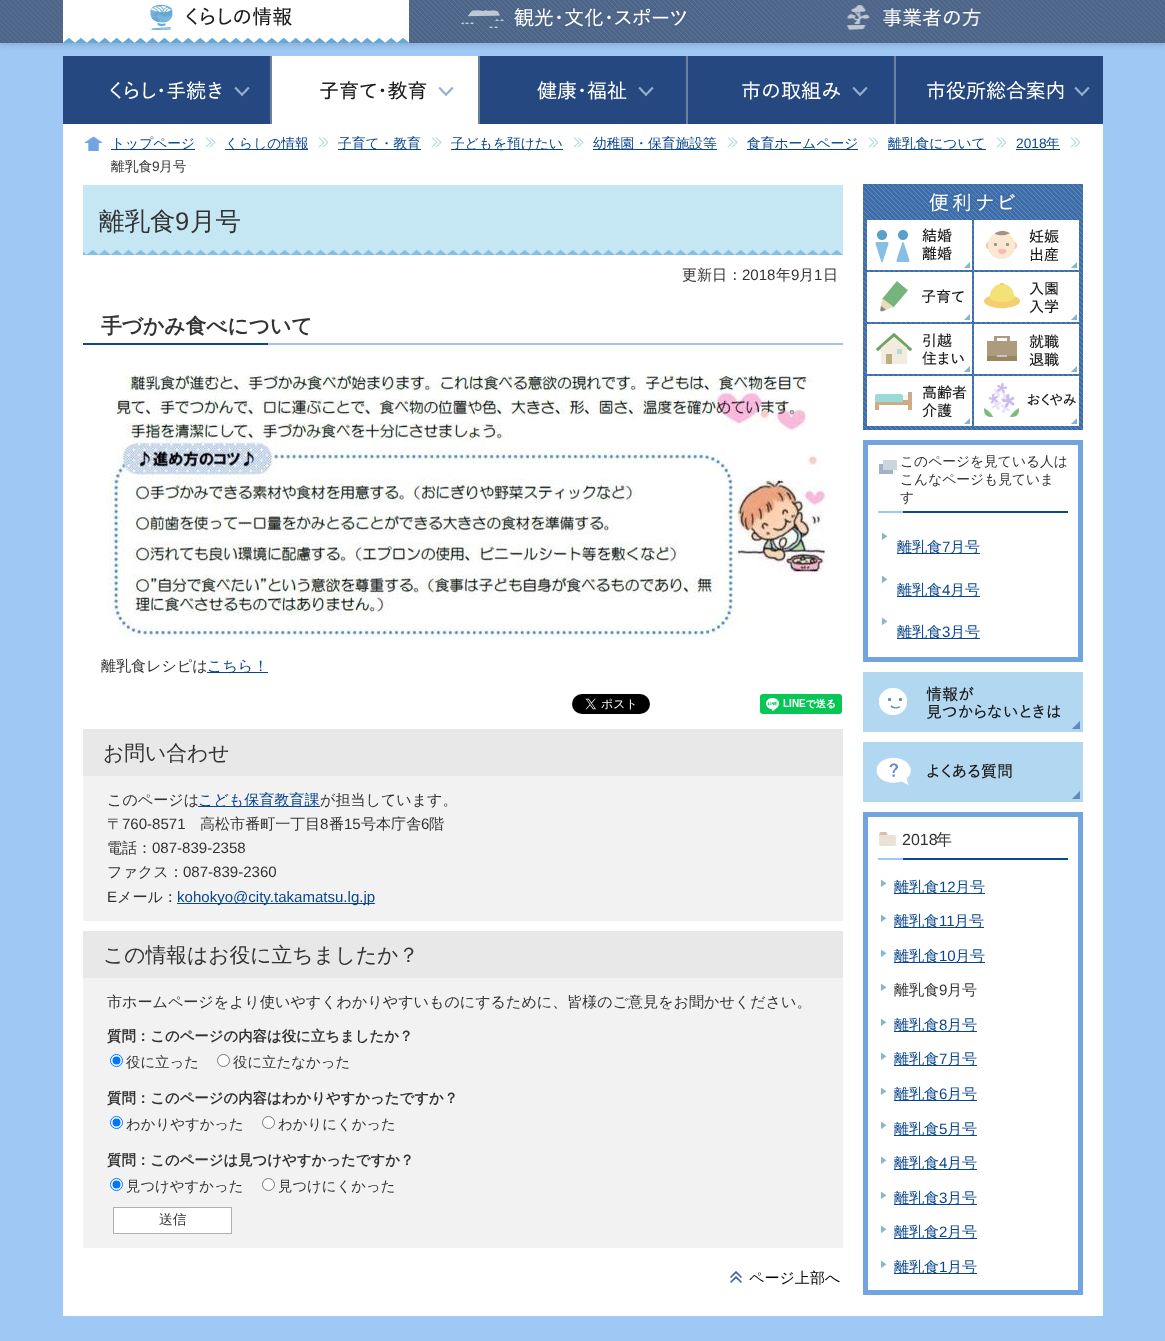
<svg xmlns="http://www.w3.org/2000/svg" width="1165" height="1341">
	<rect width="100%" height="100%" fill="#9FC9F4" />
	<rect x="-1" y="-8" width="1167" height="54" fill="#8DB1D7" filter="blur(2.5px)" />
	<image x="0" y="0" width="1165" height="43" href="assets/img1.png" />
	<image x="63" y="0" width="346" height="43" href="assets/img2.png" />
	<image x="409" y="0" width="346" height="43" href="assets/img3.png" />
	<image x="755" y="0" width="346" height="43" href="assets/img4.png" />
	<rect x="63" y="124" width="1040" height="1192" fill="#FFFFFF" />
	<image x="63" y="56" width="208" height="68" href="assets/img5.png" />
	<image x="271" y="56" width="208" height="68" href="assets/img6.png" />
	<image x="479" y="56" width="208" height="68" href="assets/img7.png" />
	<image x="687" y="56" width="208" height="68" href="assets/img8.png" />
	<image x="895" y="56" width="208" height="68" href="assets/img9.png" />
	<image x="84" y="136" width="19" height="15" href="assets/img10.png" />
	<image x="205" y="137" width="11" height="11" href="assets/img11.png" />
	<rect x="111" y="149" width="84" height="1" fill="#0A468C" />
	<text x="111" y="148" font-family="WenQuanYi Zen Hei" font-size="13.75" font-weight="500" fill="#0A468C">トップページ</text>
	<image x="318" y="137" width="11" height="11" href="assets/img11.png" />
	<rect x="225" y="149" width="83" height="1" fill="#0A468C" />
	<text x="225" y="148" font-family="WenQuanYi Zen Hei" font-size="13.75" font-weight="500" fill="#0A468C">くらしの情報</text>
	<image x="431" y="137" width="11" height="11" href="assets/img11.png" />
	<rect x="338" y="149" width="83" height="1" fill="#0A468C" />
	<text x="338" y="148" font-family="WenQuanYi Zen Hei" font-size="13.75" font-weight="500" fill="#0A468C">子育て・教育</text>
	<image x="573" y="137" width="11" height="11" href="assets/img11.png" />
	<rect x="451" y="149" width="112" height="1" fill="#0A468C" />
	<text x="451" y="148" font-family="WenQuanYi Zen Hei" font-size="13.75" font-weight="500" fill="#0A468C">子どもを預けたい</text>
	<image x="727" y="137" width="11" height="11" href="assets/img11.png" />
	<rect x="593" y="149" width="124" height="1" fill="#0A468C" />
	<text x="593" y="148" font-family="WenQuanYi Zen Hei" font-size="13.75" font-weight="500" fill="#0A468C">幼稚園・保育施設等</text>
	<image x="868" y="137" width="11" height="11" href="assets/img11.png" />
	<rect x="747" y="149" width="111" height="1" fill="#0A468C" />
	<text x="747" y="148" font-family="WenQuanYi Zen Hei" font-size="13.75" font-weight="500" fill="#0A468C">食育ホームページ</text>
	<image x="996" y="137" width="11" height="11" href="assets/img11.png" />
	<rect x="888" y="149" width="98" height="1" fill="#0A468C" />
	<text x="888" y="148" font-family="WenQuanYi Zen Hei" font-size="13.75" font-weight="500" fill="#0A468C">離乳食について</text>
	<image x="1070" y="137" width="11" height="11" href="assets/img11.png" />
	<text x="1016" y="148" font-family="Liberation Sans" font-size="13.75" fill="#0A468C">2018</text>
	<rect x="1016" y="149" width="44" height="1" fill="#0A468C" />
	<text x="1046" y="148" font-family="WenQuanYi Zen Hei" font-size="13.75" font-weight="500" fill="#0A468C">年</text>
	<text x="111" y="171" font-family="WenQuanYi Zen Hei" font-size="13.75" font-weight="500" fill="#333333">離乳食</text>
	<text x="152" y="171" font-family="Liberation Sans" font-size="13.75" fill="#333333">9</text>
	<text x="159" y="171" font-family="WenQuanYi Zen Hei" font-size="13.75" font-weight="500" fill="#333333">月号</text>
	<rect x="83" y="185" width="760" height="65" fill="#C5E6F3" />
	<image x="83" y="250" width="760" height="5" href="assets/img12.png" />
	<text x="99" y="230" font-family="WenQuanYi Zen Hei" font-size="25.5" font-weight="500" fill="#333333">離乳食</text>
	<text x="175" y="230" font-family="Liberation Sans" font-size="25.5" fill="#333333">9</text>
	<text x="190" y="230" font-family="WenQuanYi Zen Hei" font-size="25.5" font-weight="500" fill="#333333">月号</text>
	<text x="682" y="280" font-family="WenQuanYi Zen Hei" font-size="15.05" font-weight="500" fill="#333333">更新日：</text>
	<text x="742" y="280" font-family="Liberation Sans" font-size="15.05" fill="#333333">2018</text>
	<text x="776" y="280" font-family="WenQuanYi Zen Hei" font-size="15.05" font-weight="500" fill="#333333">年</text>
	<text x="791" y="280" font-family="Liberation Sans" font-size="15.05" fill="#333333">9</text>
	<text x="799" y="280" font-family="WenQuanYi Zen Hei" font-size="15.05" font-weight="500" fill="#333333">月</text>
	<text x="814" y="280" font-family="Liberation Sans" font-size="15.05" fill="#333333">1</text>
	<text x="823" y="280" font-family="WenQuanYi Zen Hei" font-size="15.05" font-weight="500" fill="#333333">日</text>
	<image x="83" y="343" width="760" height="2" href="assets/img13.png" />
	<text x="101" y="333" font-family="WenQuanYi Zen Hei" font-size="20.75" font-weight="700" fill="#333333">手づかみ食べについて</text>
	<image x="106" y="367" width="723" height="270" href="assets/img14.png" />
	<text x="101" y="671" font-family="WenQuanYi Zen Hei" font-size="15.05" font-weight="500" fill="#333333">離乳食レシピは</text>
	<rect x="207" y="672" width="61" height="1" fill="#0A468C" />
	<text x="207" y="671" font-family="WenQuanYi Zen Hei" font-size="15.05" font-weight="500" fill="#0A468C">こちら！</text>
	<image x="572" y="694" width="78" height="20" href="assets/img15.png" />
	<image x="760" y="694" width="82" height="20" href="assets/img16.png" />
	<rect x="83" y="776" width="760" height="145" fill="#F2F2F2" />
	<rect x="83" y="729" width="760" height="47" fill="#E8E8E8" />
	<text x="103" y="760" font-family="WenQuanYi Zen Hei" font-size="20.75" font-weight="500" fill="#333333">お問い合わせ</text>
	<text x="107" y="805" font-family="WenQuanYi Zen Hei" font-size="15.05" font-weight="500" fill="#333333">このページは</text>
	<rect x="198" y="806" width="122" height="1" fill="#0A468C" />
	<text x="198" y="805" font-family="WenQuanYi Zen Hei" font-size="15.05" font-weight="500" fill="#0A468C">こども保育教育課</text>
	<g font-family="WenQuanYi Zen Hei" font-size="15.05" font-weight="500" fill="#333333">
		<text x="320" y="805">が担当しています。</text>
		<text x="107" y="829">〒</text>
	</g>
	<text x="122" y="829" font-family="Liberation Sans" font-size="15.05" fill="#333333">760-8571</text>
	<text x="200" y="829" font-family="WenQuanYi Zen Hei" font-size="15.05" font-weight="500" fill="#333333">高松市番町一丁目</text>
	<text x="320" y="829" font-family="Liberation Sans" font-size="15.05" fill="#333333">8</text>
	<text x="329" y="829" font-family="WenQuanYi Zen Hei" font-size="15.05" font-weight="500" fill="#333333">番</text>
	<text x="344" y="829" font-family="Liberation Sans" font-size="15.05" fill="#333333">15</text>
	<text x="361" y="829" font-family="WenQuanYi Zen Hei" font-size="15.05" font-weight="500" fill="#333333">号本庁舎</text>
	<text x="421" y="829" font-family="Liberation Sans" font-size="15.05" fill="#333333">6</text>
	<g font-family="WenQuanYi Zen Hei" font-size="15.05" font-weight="500" fill="#333333">
		<text x="429" y="829">階</text>
		<text x="107" y="853">電話：</text>
	</g>
	<text x="152" y="853" font-family="Liberation Sans" font-size="15.05" fill="#333333">087-839-2358</text>
	<text x="107" y="877" font-family="WenQuanYi Zen Hei" font-size="15.05" font-weight="500" fill="#333333">ファクス：</text>
	<g font-family="Liberation Sans" font-size="15.05" fill="#333333">
		<text x="183" y="877">087-839-2360</text>
		<text x="107" y="902">E</text>
	</g>
	<text x="117" y="902" font-family="WenQuanYi Zen Hei" font-size="15.05" font-weight="500" fill="#333333">メール：</text>
	<rect x="177" y="903" width="198" height="1" fill="#0A468C" />
	<text x="177" y="902" font-family="Liberation Sans" font-size="15.05" fill="#0A468C">kohokyo@city.takamatsu.lg.jp</text>
	<rect x="83" y="978" width="760" height="270" fill="#F2F2F2" />
	<rect x="83" y="931" width="760" height="47" fill="#E8E8E8" />
	<text x="103" y="962" font-family="WenQuanYi Zen Hei" font-size="20.75" font-weight="500" fill="#333333">この情報はお役に立ちましたか？</text>
	<text x="107" y="1007" font-family="WenQuanYi Zen Hei" font-size="15.05" font-weight="500" fill="#333333">市ホームページをより使いやすくわかりやすいものにするために、皆様のご意見をお聞かせください。</text>
	<text x="107" y="1041" font-family="WenQuanYi Zen Hei" font-size="14.4" font-weight="700" fill="#333333">質問：このページの内容は役に立ちましたか？</text>
	<circle cx="116.5" cy="1060.5" r="6" fill="#FFFFFF" stroke="#0075FF" />
	<circle cx="116.5" cy="1060.5" r="4" fill="#0075FF" />
	<text x="126" y="1067" font-family="WenQuanYi Zen Hei" font-size="14.4" font-weight="500" fill="#333333">役に立った</text>
	<circle cx="223.5" cy="1060.5" r="6" fill="#FFFFFF" stroke="#767676" />
	<text x="233" y="1067" font-family="WenQuanYi Zen Hei" font-size="14.4" font-weight="500" fill="#333333">役に立たなかった</text>
	<text x="107" y="1103" font-family="WenQuanYi Zen Hei" font-size="14.4" font-weight="700" fill="#333333">質問：このページの内容はわかりやすかったですか？</text>
	<circle cx="116.5" cy="1122.5" r="6" fill="#FFFFFF" stroke="#0075FF" />
	<circle cx="116.5" cy="1122.5" r="4" fill="#0075FF" />
	<text x="126" y="1129" font-family="WenQuanYi Zen Hei" font-size="14.4" font-weight="500" fill="#333333">わかりやすかった</text>
	<circle cx="268.5" cy="1122.5" r="6" fill="#FFFFFF" stroke="#767676" />
	<text x="278" y="1129" font-family="WenQuanYi Zen Hei" font-size="14.4" font-weight="500" fill="#333333">わかりにくかった</text>
	<text x="107" y="1165" font-family="WenQuanYi Zen Hei" font-size="14.4" font-weight="700" fill="#333333">質問：このページは見つけやすかったですか？</text>
	<circle cx="116.5" cy="1184.5" r="6" fill="#FFFFFF" stroke="#0075FF" />
	<circle cx="116.5" cy="1184.5" r="4" fill="#0075FF" />
	<text x="126" y="1191" font-family="WenQuanYi Zen Hei" font-size="14.4" font-weight="500" fill="#333333">見つけやすかった</text>
	<circle cx="268.5" cy="1184.5" r="6" fill="#FFFFFF" stroke="#767676" />
	<text x="278" y="1191" font-family="WenQuanYi Zen Hei" font-size="14.4" font-weight="500" fill="#333333">見つけにくかった</text>
	<rect x="113.5" y="1207.5" width="118" height="26" fill="#FFFFFF" stroke="#B0B0B0" />
	<text x="159" y="1224" font-family="WenQuanYi Zen Hei" font-size="13.75" font-weight="500" fill="#333333">送信</text>
	<image x="730" y="1271" width="12" height="12" href="assets/img17.png" />
	<text x="749" y="1283" font-family="WenQuanYi Zen Hei" font-size="15.05" font-weight="500" fill="#000000">ページ上部へ</text>
	<image x="863" y="184" width="220" height="246" href="assets/img18.png" />
	<image x="928" y="191" width="88" height="23" href="assets/img19.png" />
	<image x="867" y="220" width="105" height="50" href="assets/img20.png" />
	<image x="974" y="220" width="105" height="50" href="assets/img21.png" />
	<image x="867" y="272" width="105" height="50" href="assets/img22.png" />
	<image x="974" y="272" width="105" height="50" href="assets/img23.png" />
	<image x="867" y="324" width="105" height="50" href="assets/img24.png" />
	<image x="974" y="324" width="105" height="50" href="assets/img25.png" />
	<image x="867" y="376" width="105" height="50" href="assets/img26.png" />
	<image x="974" y="376" width="105" height="50" href="assets/img27.png" />
	<rect x="865.5" y="442.5" width="215" height="217" fill="none" stroke="#72A4E0" stroke-width="5" />
	<image x="878" y="511" width="190" height="2" href="assets/img28.png" />
	<image x="879" y="460" width="18" height="14" href="assets/img29.png" />
	<g font-family="WenQuanYi Zen Hei" font-size="13.75" font-weight="500" fill="#333333">
		<text x="900" y="466">このページを見ている人は</text>
		<text x="900" y="484">こんなページも見ていま</text>
		<text x="900" y="502">す</text>
	</g>
	<image x="882" y="532" width="6" height="8" href="assets/img30.png" />
	<rect x="897" y="553" width="83" height="1" fill="#0A468C" />
	<text x="897" y="552" font-family="WenQuanYi Zen Hei" font-size="15.05" font-weight="500" fill="#0A468C">離乳食</text>
	<text x="942" y="552" font-family="Liberation Sans" font-size="15.05" fill="#0A468C">7</text>
	<text x="950" y="552" font-family="WenQuanYi Zen Hei" font-size="15.05" font-weight="500" fill="#0A468C">月号</text>
	<image x="882" y="575" width="6" height="8" href="assets/img30.png" />
	<rect x="897" y="596" width="83" height="1" fill="#0A468C" />
	<text x="897" y="595" font-family="WenQuanYi Zen Hei" font-size="15.05" font-weight="500" fill="#0A468C">離乳食</text>
	<text x="942" y="595" font-family="Liberation Sans" font-size="15.05" fill="#0A468C">4</text>
	<text x="950" y="595" font-family="WenQuanYi Zen Hei" font-size="15.05" font-weight="500" fill="#0A468C">月号</text>
	<image x="882" y="617" width="6" height="8" href="assets/img30.png" />
	<rect x="897" y="638" width="83" height="1" fill="#0A468C" />
	<text x="897" y="637" font-family="WenQuanYi Zen Hei" font-size="15.05" font-weight="500" fill="#0A468C">離乳食</text>
	<text x="942" y="637" font-family="Liberation Sans" font-size="15.05" fill="#0A468C">3</text>
	<text x="950" y="637" font-family="WenQuanYi Zen Hei" font-size="15.05" font-weight="500" fill="#0A468C">月号</text>
	<image x="863" y="672" width="220" height="60" href="assets/img31.png" />
	<image x="863" y="742" width="220" height="60" href="assets/img32.png" />
	<rect x="865.5" y="814.5" width="215" height="478" fill="none" stroke="#72A4E0" stroke-width="5" />
	<image x="878" y="858" width="190" height="2" href="assets/img28.png" />
	<image x="879" y="832" width="17" height="14" href="assets/img33.png" />
	<text x="902" y="845" font-family="Liberation Sans" font-size="16" fill="#333333">2018</text>
	<text x="936" y="845" font-family="WenQuanYi Zen Hei" font-size="16" font-weight="500" fill="#333333">年</text>
	<image x="881" y="879" width="6" height="8" href="assets/img30.png" />
	<rect x="894" y="893" width="91" height="1" fill="#0A468C" />
	<text x="894" y="892" font-family="WenQuanYi Zen Hei" font-size="15.05" font-weight="500" fill="#0A468C">離乳食</text>
	<text x="939" y="892" font-family="Liberation Sans" font-size="15.05" fill="#0A468C">12</text>
	<text x="955" y="892" font-family="WenQuanYi Zen Hei" font-size="15.05" font-weight="500" fill="#0A468C">月号</text>
	<image x="881" y="914" width="6" height="8" href="assets/img30.png" />
	<rect x="894" y="927" width="90" height="1" fill="#0A468C" />
	<text x="894" y="926" font-family="WenQuanYi Zen Hei" font-size="15.05" font-weight="500" fill="#0A468C">離乳食</text>
	<text x="939" y="926" font-family="Liberation Sans" font-size="15.05" fill="#0A468C">11</text>
	<text x="954" y="926" font-family="WenQuanYi Zen Hei" font-size="15.05" font-weight="500" fill="#0A468C">月号</text>
	<image x="881" y="949" width="6" height="8" href="assets/img30.png" />
	<rect x="894" y="962" width="91" height="1" fill="#0A468C" />
	<text x="894" y="961" font-family="WenQuanYi Zen Hei" font-size="15.05" font-weight="500" fill="#0A468C">離乳食</text>
	<text x="939" y="961" font-family="Liberation Sans" font-size="15.05" fill="#0A468C">10</text>
	<text x="955" y="961" font-family="WenQuanYi Zen Hei" font-size="15.05" font-weight="500" fill="#0A468C">月号</text>
	<image x="881" y="983" width="6" height="8" href="assets/img30.png" />
	<text x="894" y="995" font-family="WenQuanYi Zen Hei" font-size="15.05" font-weight="500" fill="#333333">離乳食</text>
	<text x="939" y="995" font-family="Liberation Sans" font-size="15.05" fill="#333333">9</text>
	<text x="947" y="995" font-family="WenQuanYi Zen Hei" font-size="15.05" font-weight="500" fill="#333333">月号</text>
	<image x="881" y="1018" width="6" height="8" href="assets/img30.png" />
	<rect x="894" y="1031" width="83" height="1" fill="#0A468C" />
	<text x="894" y="1030" font-family="WenQuanYi Zen Hei" font-size="15.05" font-weight="500" fill="#0A468C">離乳食</text>
	<text x="939" y="1030" font-family="Liberation Sans" font-size="15.05" fill="#0A468C">8</text>
	<text x="947" y="1030" font-family="WenQuanYi Zen Hei" font-size="15.05" font-weight="500" fill="#0A468C">月号</text>
	<image x="881" y="1052" width="6" height="8" href="assets/img30.png" />
	<rect x="894" y="1065" width="83" height="1" fill="#0A468C" />
	<text x="894" y="1064" font-family="WenQuanYi Zen Hei" font-size="15.05" font-weight="500" fill="#0A468C">離乳食</text>
	<text x="939" y="1064" font-family="Liberation Sans" font-size="15.05" fill="#0A468C">7</text>
	<text x="947" y="1064" font-family="WenQuanYi Zen Hei" font-size="15.05" font-weight="500" fill="#0A468C">月号</text>
	<image x="881" y="1087" width="6" height="8" href="assets/img30.png" />
	<rect x="894" y="1100" width="83" height="1" fill="#0A468C" />
	<text x="894" y="1099" font-family="WenQuanYi Zen Hei" font-size="15.05" font-weight="500" fill="#0A468C">離乳食</text>
	<text x="939" y="1099" font-family="Liberation Sans" font-size="15.05" fill="#0A468C">6</text>
	<text x="947" y="1099" font-family="WenQuanYi Zen Hei" font-size="15.05" font-weight="500" fill="#0A468C">月号</text>
	<image x="881" y="1121" width="6" height="8" href="assets/img30.png" />
	<rect x="894" y="1135" width="83" height="1" fill="#0A468C" />
	<text x="894" y="1134" font-family="WenQuanYi Zen Hei" font-size="15.05" font-weight="500" fill="#0A468C">離乳食</text>
	<text x="939" y="1134" font-family="Liberation Sans" font-size="15.05" fill="#0A468C">5</text>
	<text x="947" y="1134" font-family="WenQuanYi Zen Hei" font-size="15.05" font-weight="500" fill="#0A468C">月号</text>
	<image x="881" y="1156" width="6" height="8" href="assets/img30.png" />
	<rect x="894" y="1169" width="83" height="1" fill="#0A468C" />
	<text x="894" y="1168" font-family="WenQuanYi Zen Hei" font-size="15.05" font-weight="500" fill="#0A468C">離乳食</text>
	<text x="939" y="1168" font-family="Liberation Sans" font-size="15.05" fill="#0A468C">4</text>
	<text x="947" y="1168" font-family="WenQuanYi Zen Hei" font-size="15.05" font-weight="500" fill="#0A468C">月号</text>
	<image x="881" y="1191" width="6" height="8" href="assets/img30.png" />
	<rect x="894" y="1204" width="83" height="1" fill="#0A468C" />
	<text x="894" y="1203" font-family="WenQuanYi Zen Hei" font-size="15.05" font-weight="500" fill="#0A468C">離乳食</text>
	<text x="939" y="1203" font-family="Liberation Sans" font-size="15.05" fill="#0A468C">3</text>
	<text x="947" y="1203" font-family="WenQuanYi Zen Hei" font-size="15.05" font-weight="500" fill="#0A468C">月号</text>
	<image x="881" y="1225" width="6" height="8" href="assets/img30.png" />
	<rect x="894" y="1238" width="83" height="1" fill="#0A468C" />
	<text x="894" y="1237" font-family="WenQuanYi Zen Hei" font-size="15.05" font-weight="500" fill="#0A468C">離乳食</text>
	<text x="939" y="1237" font-family="Liberation Sans" font-size="15.05" fill="#0A468C">2</text>
	<text x="947" y="1237" font-family="WenQuanYi Zen Hei" font-size="15.05" font-weight="500" fill="#0A468C">月号</text>
	<image x="881" y="1260" width="6" height="8" href="assets/img30.png" />
	<rect x="894" y="1273" width="83" height="1" fill="#0A468C" />
	<text x="894" y="1272" font-family="WenQuanYi Zen Hei" font-size="15.05" font-weight="500" fill="#0A468C">離乳食</text>
	<text x="939" y="1272" font-family="Liberation Sans" font-size="15.05" fill="#0A468C">1</text>
	<text x="947" y="1272" font-family="WenQuanYi Zen Hei" font-size="15.05" font-weight="500" fill="#0A468C">月号</text>
</svg>
